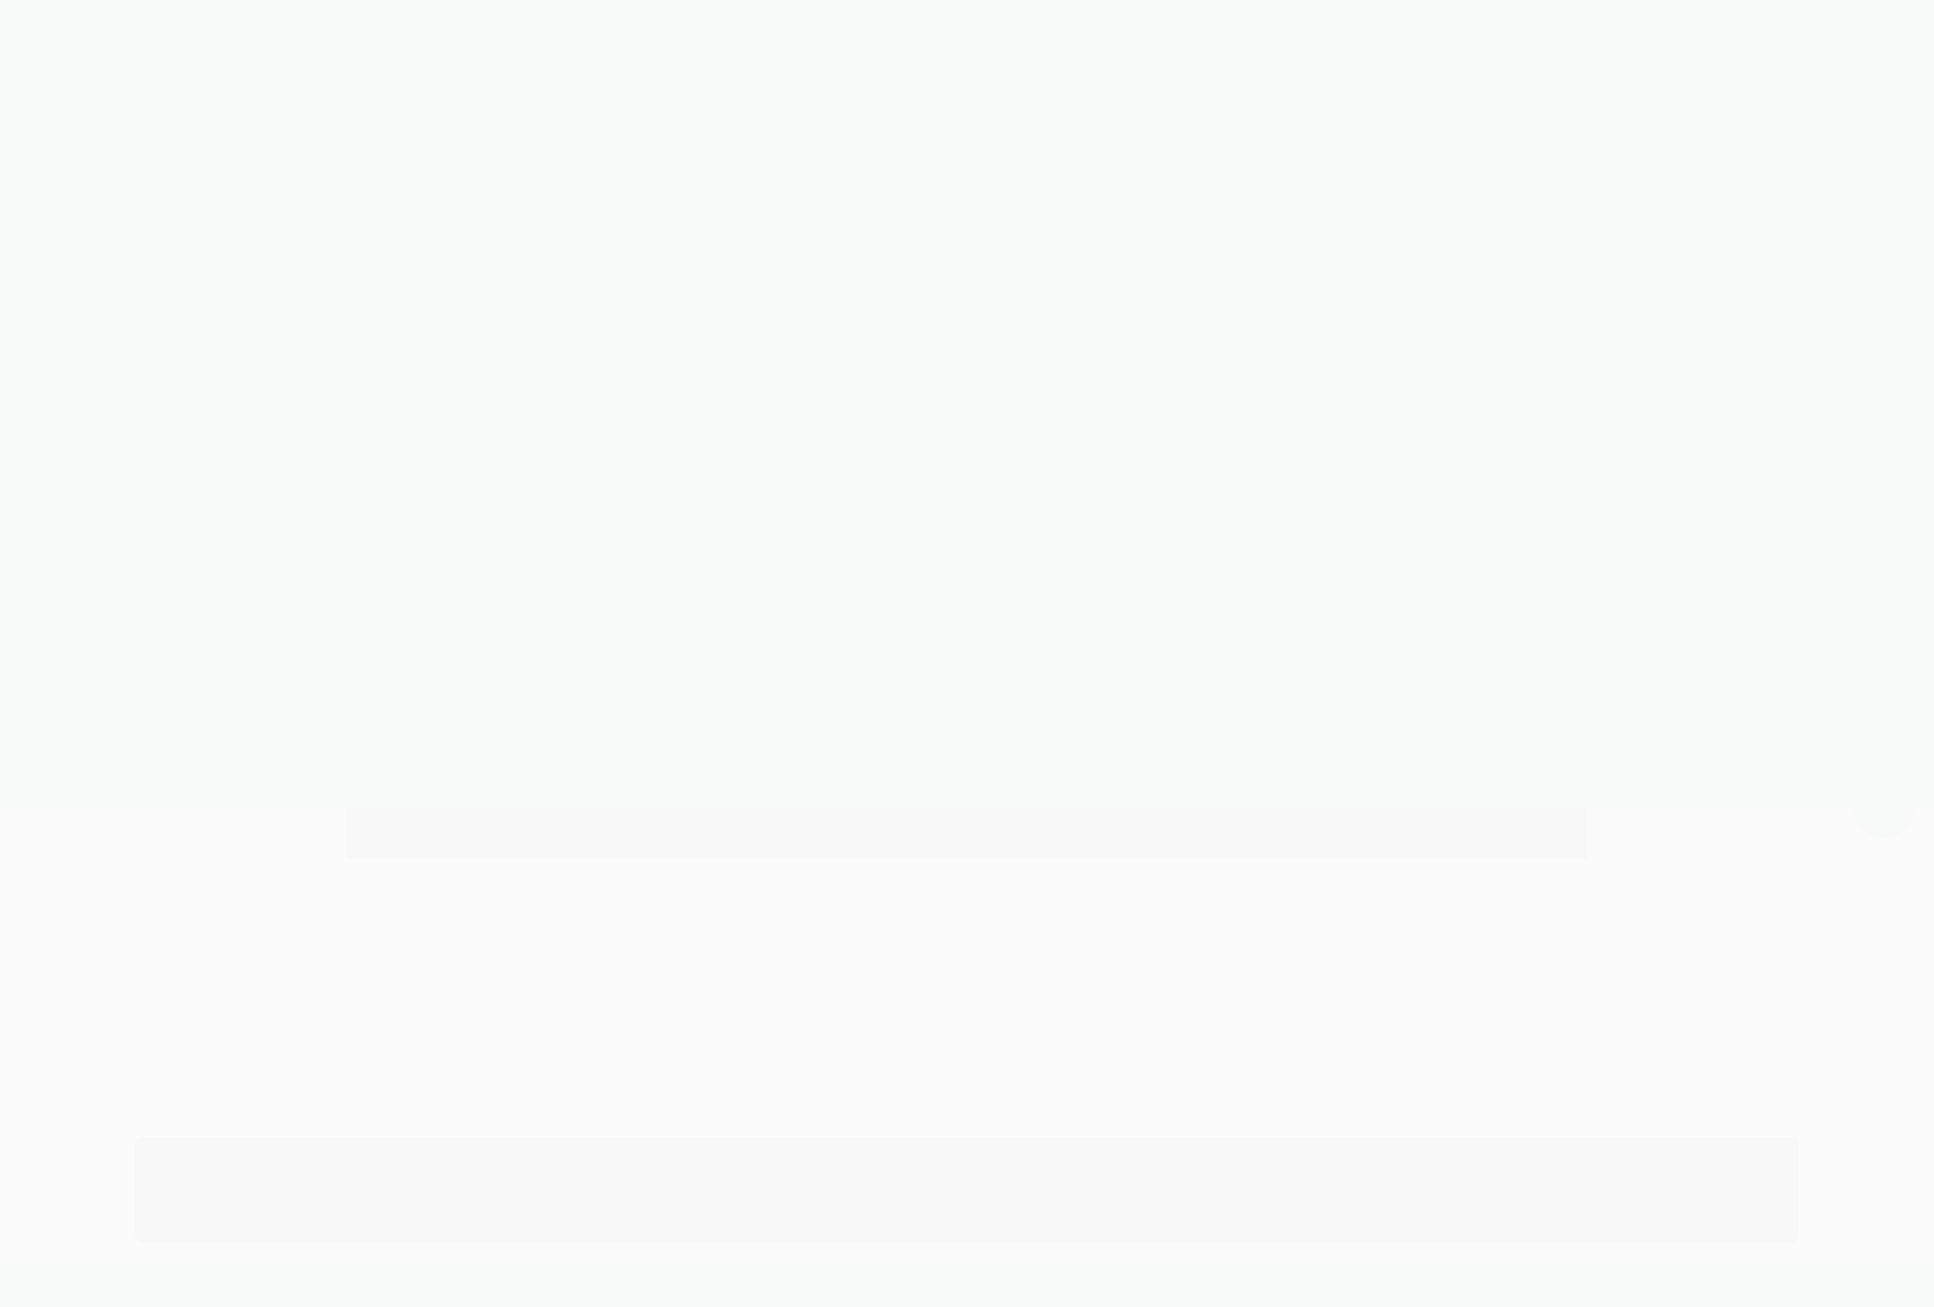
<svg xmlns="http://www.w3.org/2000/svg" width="1934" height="1307">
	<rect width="100%" height="100%" fill="#F8F9F9" />
	<rect x="0" y="808" width="1934" height="455" fill="#FBFBFB" />
	<circle cx="1884" cy="808" r="30" fill="#F8F9F9" />
	<rect x="902" y="963" width="130" height="1" fill="#F8F9F9" />
	<rect x="347" y="808" width="1240" height="50" fill="#F8F8F8" />
	<rect x="0" y="1261" width="1934" height="1" fill="#F8F9F9" />
	<rect x="135" y="1137" width="1664" height="106" rx="8" fill="#F8F8F8" />
</svg>
